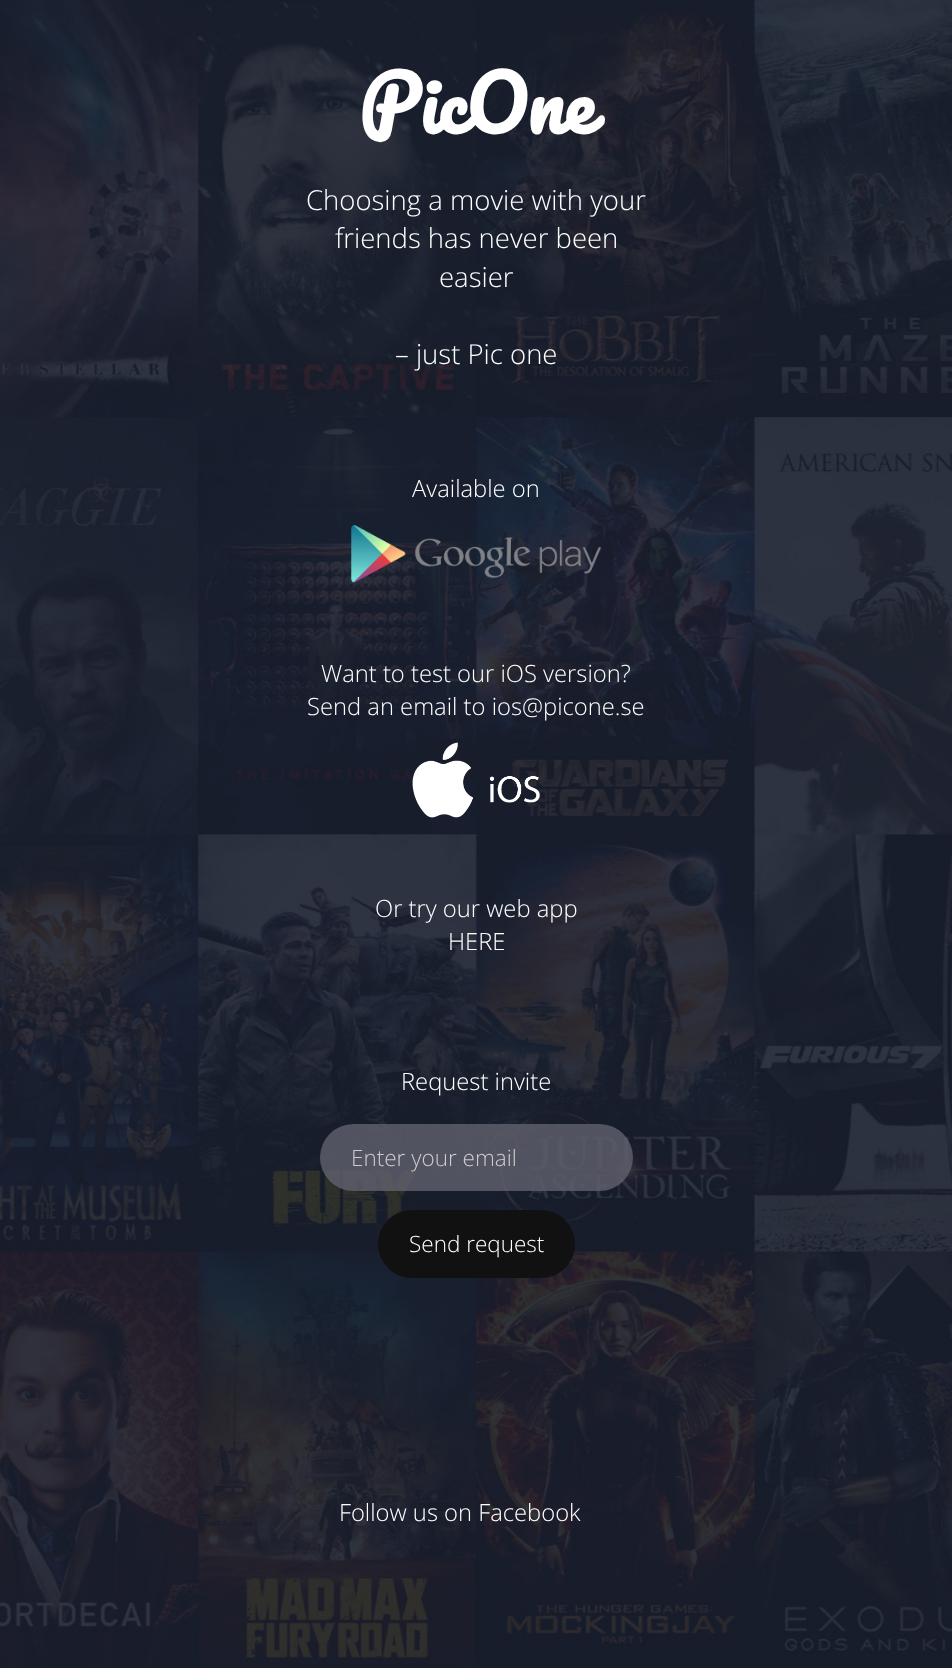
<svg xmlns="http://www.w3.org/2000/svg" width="952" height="1668">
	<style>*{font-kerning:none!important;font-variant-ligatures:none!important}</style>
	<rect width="100%" height="100%" fill="#FFFFFF" />
	<image x="0" y="0" width="952" height="1668" href="assets/img1.png" />
	<text x="359" y="134" font-family="Pacifico" font-size="75" font-weight="700" fill="#FFFFFF">PicOne</text>
	<g font-family="Open Sans" font-size="27.5" font-weight="300" fill="#FFFFFF">
		<text x="306" y="210">Choosing a movie with your</text>
		<text x="335" y="248">friends has never been</text>
		<text x="439" y="287">easier</text>
		<text x="395" y="364">– just Pic one</text>
	</g>
	<text x="412" y="497" font-family="Open Sans" font-size="23.75" font-weight="300" fill="#FFFFFF">Available on</text>
	<image x="351" y="525" width="251" height="58" href="assets/img2.png" />
	<g font-family="Open Sans" font-size="23.75" font-weight="300" fill="#FFFFFF">
		<text x="321" y="682">Want to test our iOS version?</text>
		<text x="307" y="715">Send an email to ios@picone.se</text>
	</g>
	<image x="412" y="742" width="128" height="76" href="assets/img3.png" />
	<g font-family="Open Sans" font-size="23.75" font-weight="300" fill="#FFFFFF">
		<text x="375" y="917">Or try our web app</text>
		<text x="448" y="950">HERE</text>
		<text x="401" y="1090">Request invite</text>
	</g>
	<rect x="320" y="1124" width="313" height="67" rx="33.5" fill="#61616E" fill-opacity="0.8" />
	<text x="351" y="1166" font-family="Open Sans" font-size="22.5" font-weight="300" fill="#CCCCCC">Enter your email</text>
	<rect x="378" y="1210" width="197" height="68" rx="34" fill="#111111" />
	<text x="409" y="1252" font-family="Open Sans" font-size="22.5" font-weight="300" fill="#FFFFFF">Send request</text>
	<text x="339" y="1521" font-family="Open Sans" font-size="23.75" font-weight="300" fill="#FFFFFF">Follow us on Facebook</text>
</svg>
